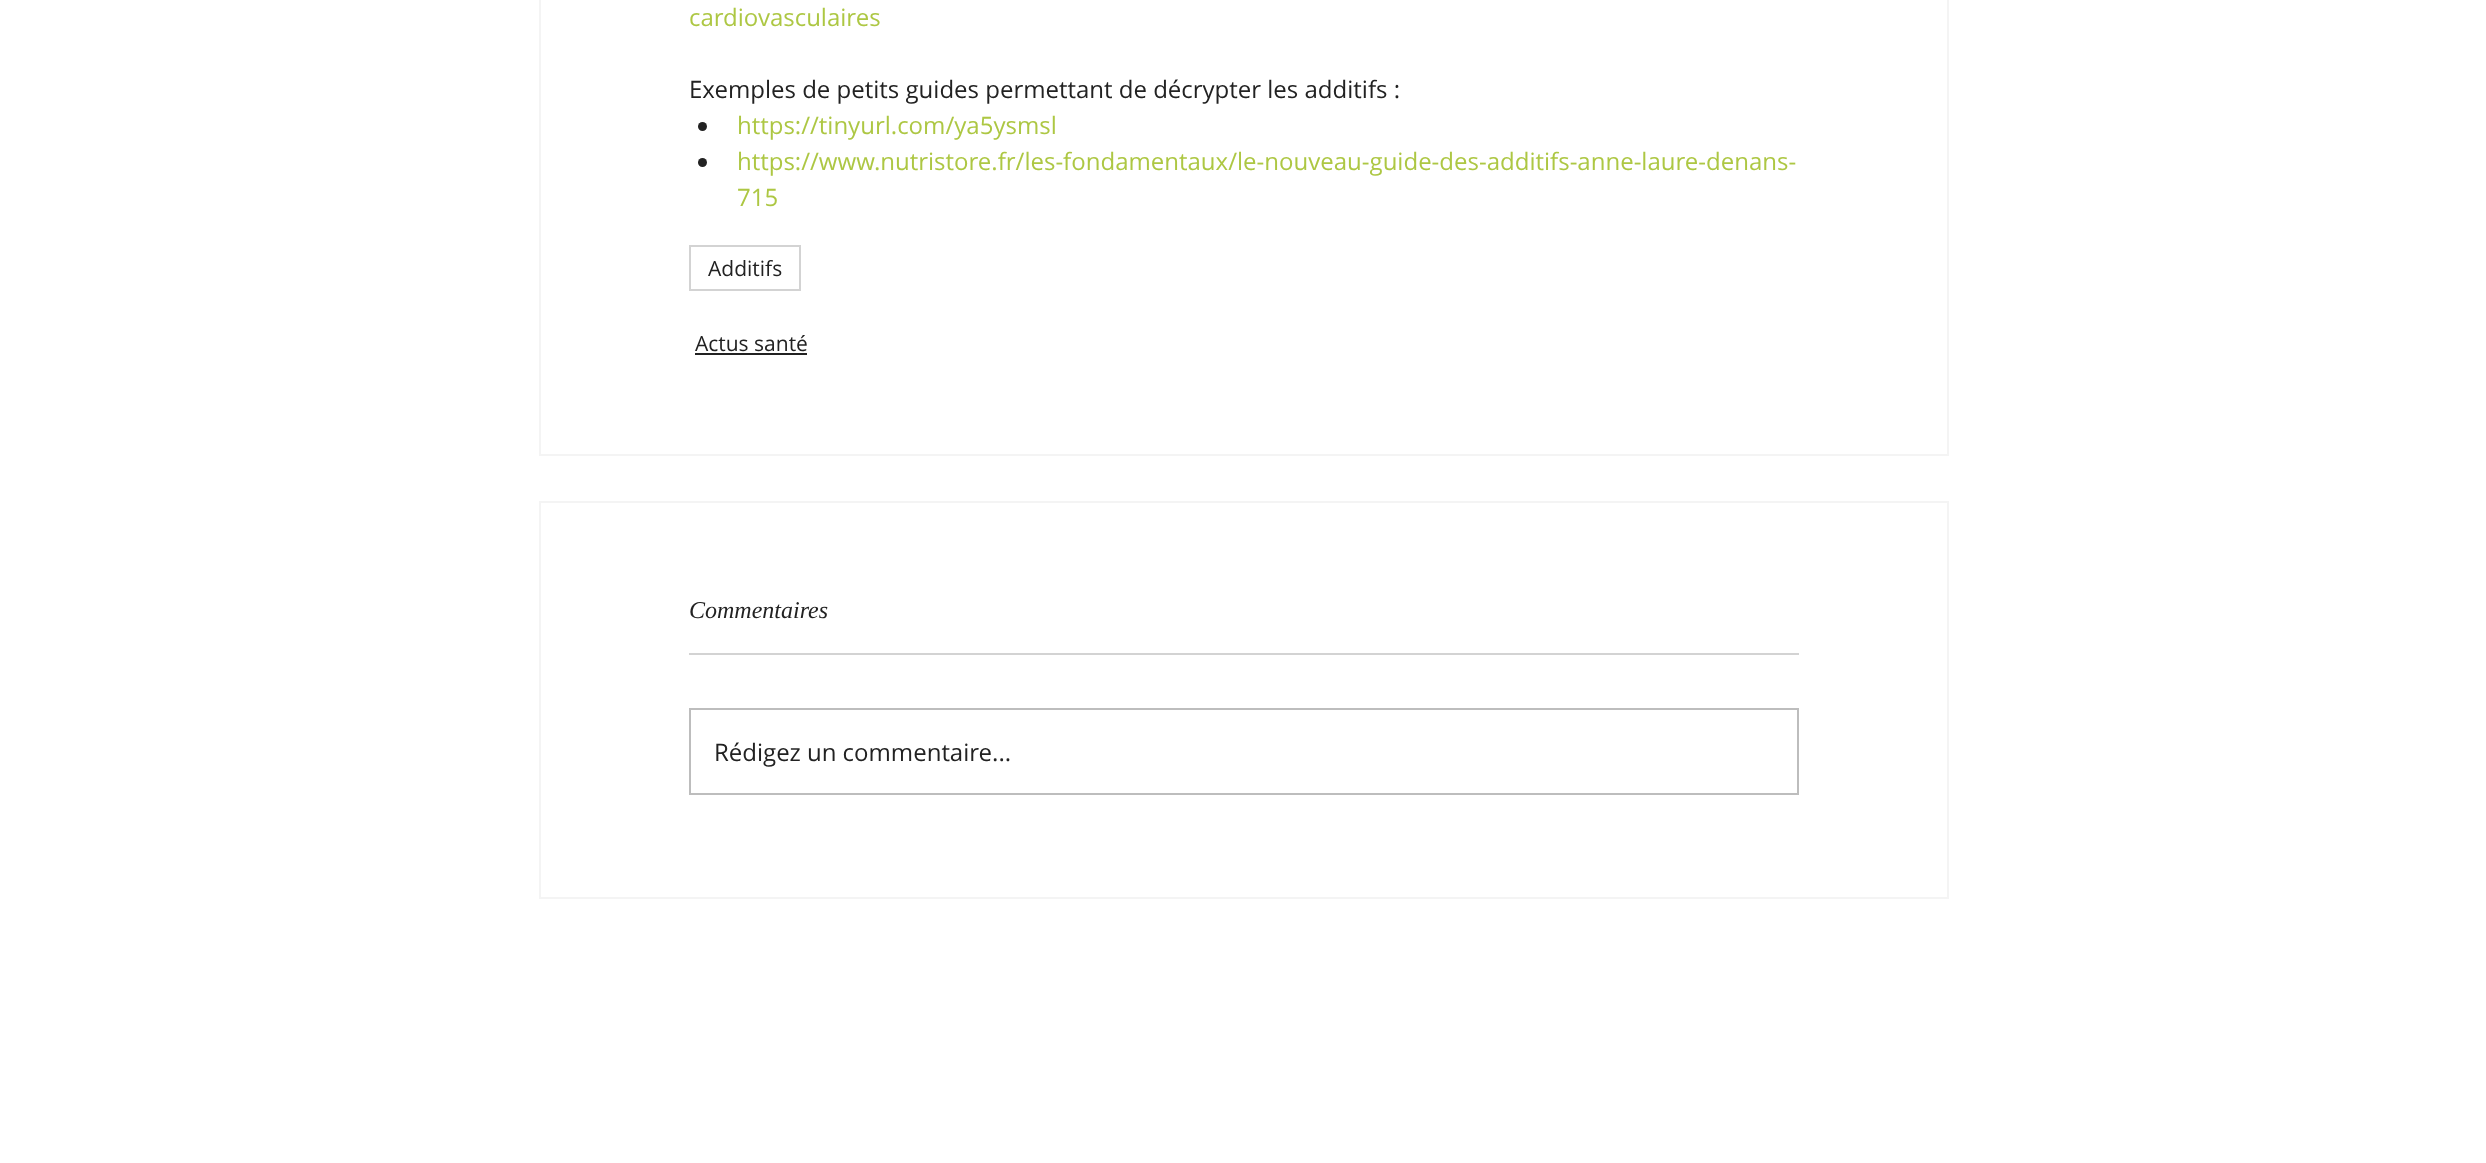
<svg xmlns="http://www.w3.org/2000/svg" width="2486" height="1163">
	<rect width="100%" height="100%" fill="#FFFFFF" />
	<rect x="540" y="-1" width="1408" height="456" fill="none" stroke="#F4F4F4" stroke-width="2" />
	<text x="689" y="26" font-family="Open Sans" font-size="24" fill="#ADC743">cardiovasculaires</text>
	<text x="689" y="98" font-family="Open Sans" font-size="24" fill="#222222">Exemples de petits guides permettant de décrypter les additifs :</text>
	<circle cx="702.5" cy="126.5" r="4.5" fill="#222222" />
	<text x="737" y="134" font-family="Open Sans" font-size="24" fill="#ADC743">https://tinyurl.com/ya5ysmsl</text>
	<circle cx="702.5" cy="162.5" r="4.5" fill="#222222" />
	<g font-family="Open Sans" font-size="24" fill="#ADC743">
		<text x="737" y="170">https://www.nutristore.fr/les-fondamentaux/le-nouveau-guide-des-additifs-anne-laure-denans-</text>
		<text x="737" y="206">715</text>
	</g>
	<rect x="690" y="246" width="110" height="44" fill="none" stroke="#D3D3D3" stroke-width="2" />
	<g font-family="Open Sans" font-size="21" fill="#222222">
		<text x="708" y="276">Additifs</text>
		<text x="695" y="351">Actus santé</text>
	</g>
	<rect x="695" y="353" width="112" height="2" fill="#222222" />
	<rect x="540" y="502" width="1408" height="396" fill="none" stroke="#F4F4F4" stroke-width="2" />
	<text x="689" y="618" font-family="Liberation Serif" font-size="24" font-style="italic" fill="#222222">Commentaires</text>
	<rect x="689" y="653" width="1110" height="2" fill="#D3D3D3" />
	<rect x="690" y="709" width="1108" height="85" fill="none" stroke="#BDBDBD" stroke-width="2" />
	<text x="714" y="761" font-family="Open Sans" font-size="24" fill="#222222">Rédigez un commentaire...</text>
</svg>
